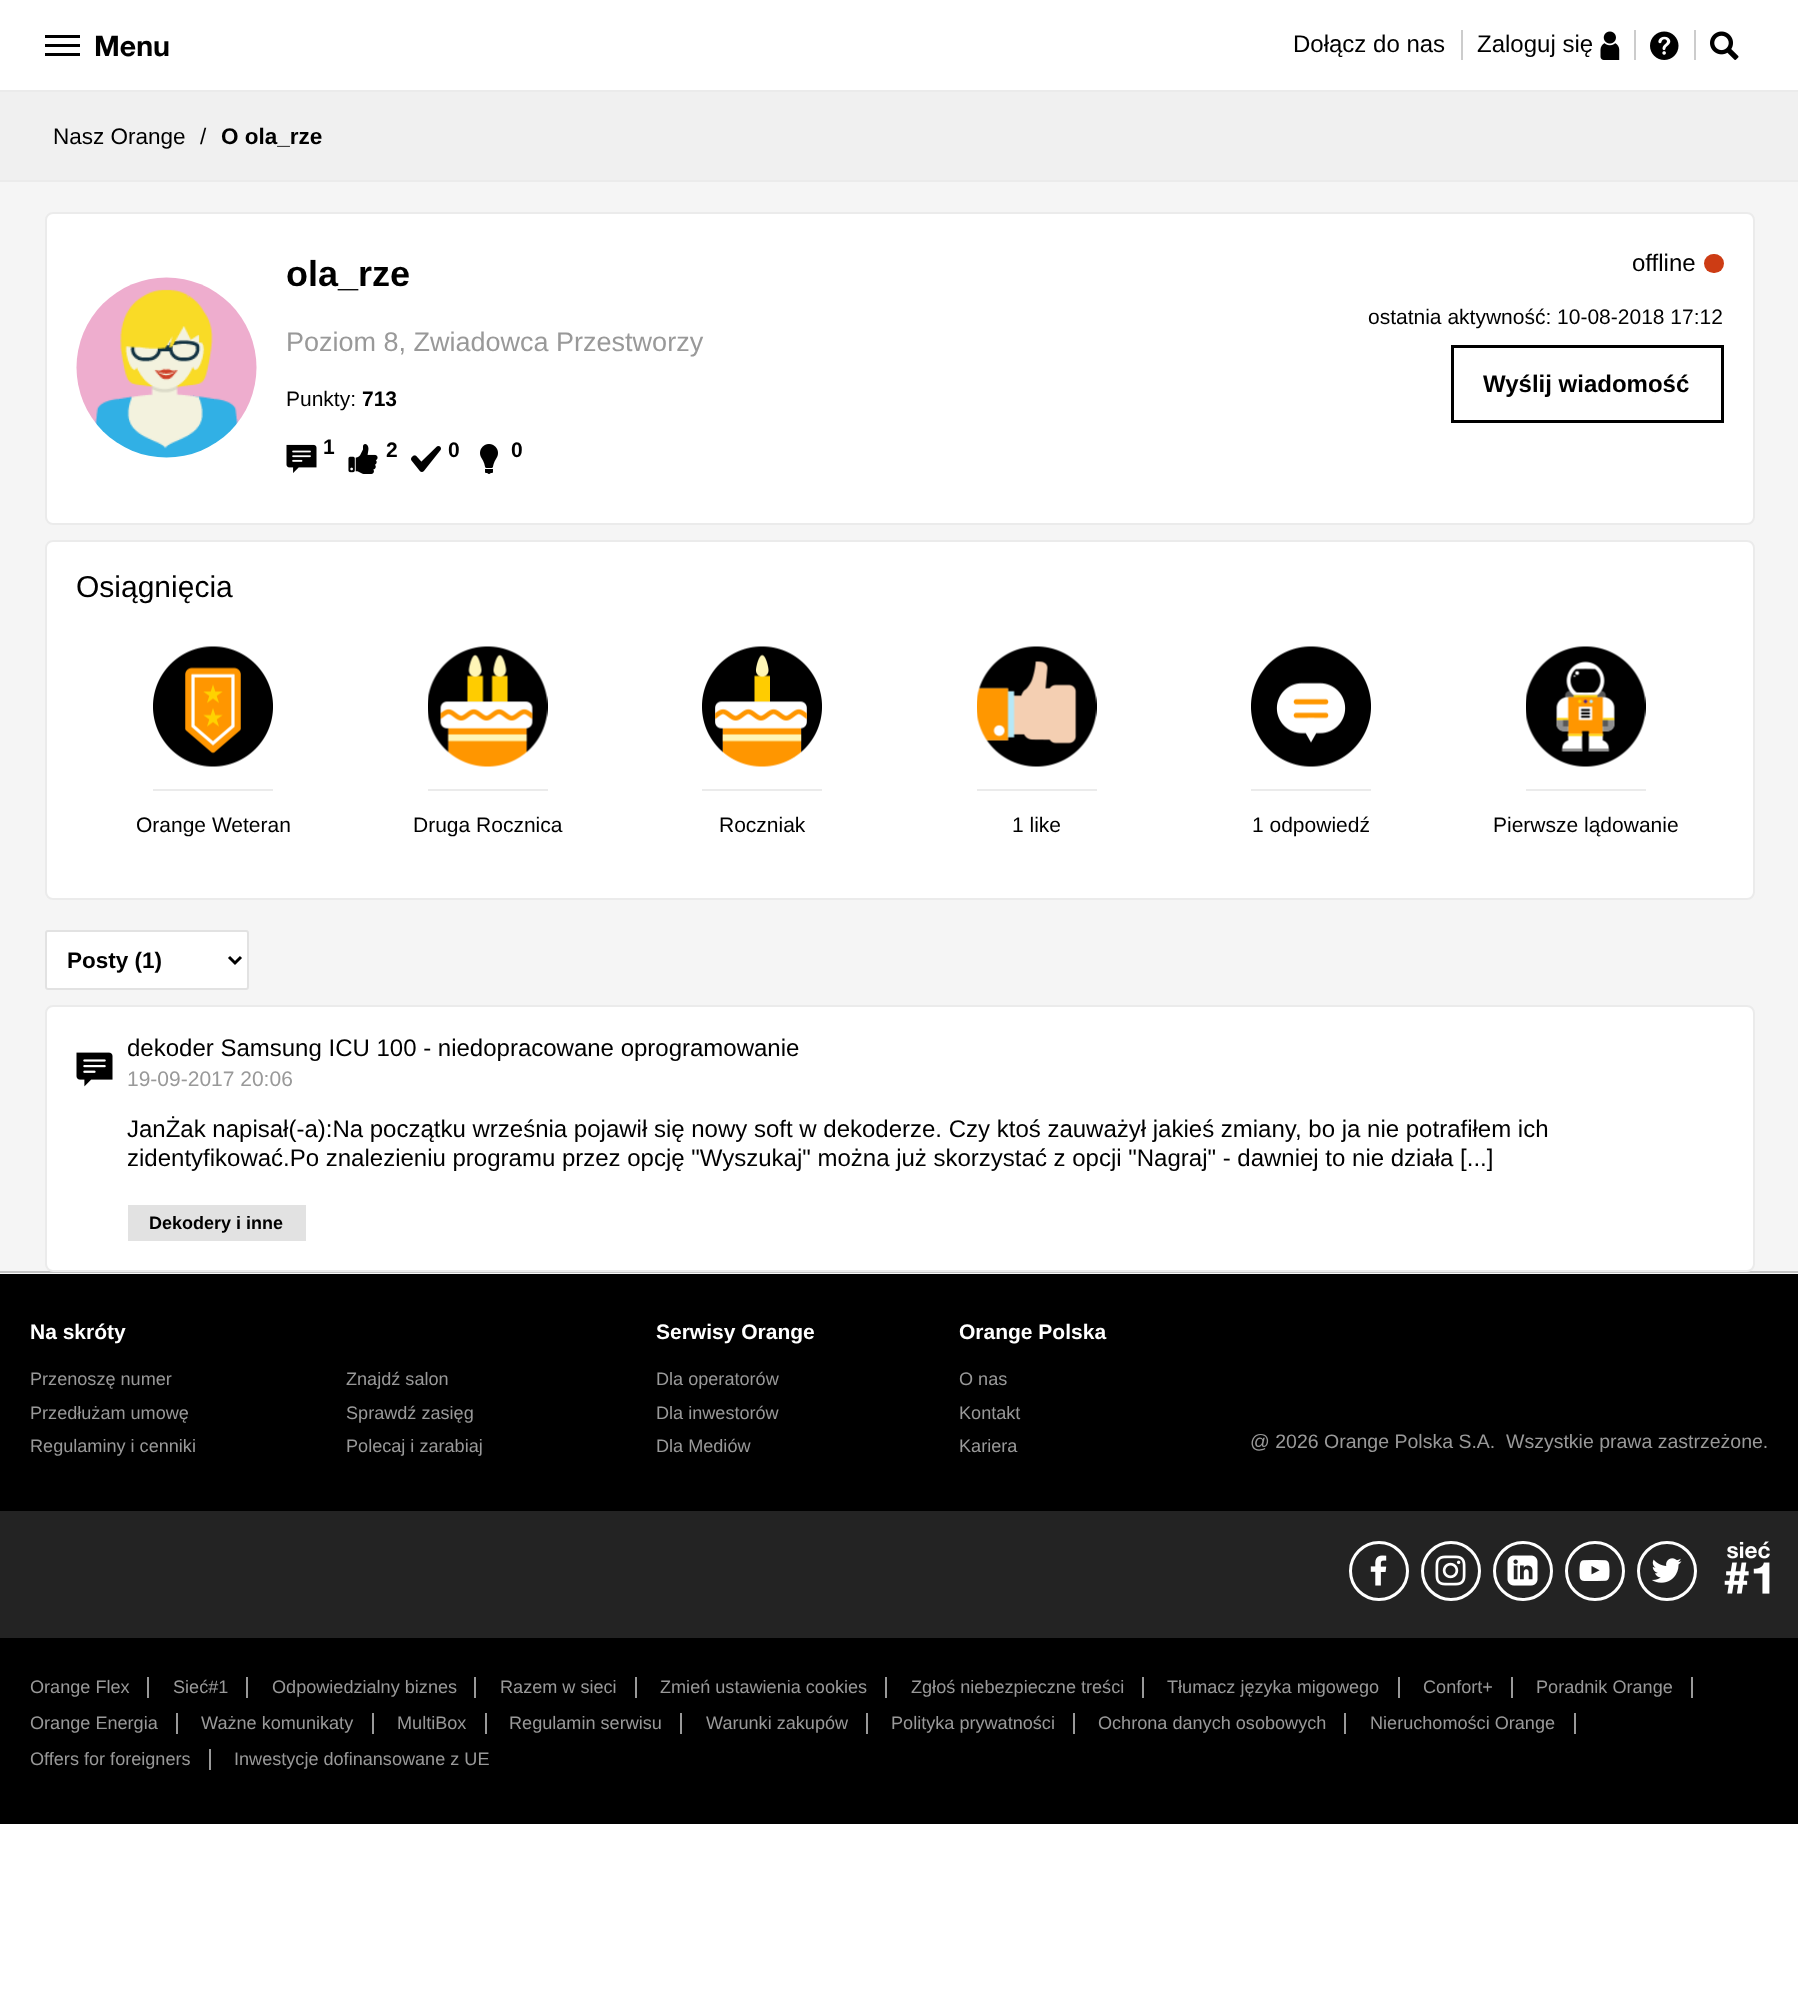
<svg xmlns="http://www.w3.org/2000/svg" width="1798" height="1990">
	<rect width="100%" height="100%" fill="#FFFFFF" />
	<rect x="0" y="182" width="1798" height="1089" fill="#F5F5F5" />
	<rect x="45" y="44" width="35" height="3" fill="#000000" />
	<rect x="45" y="35" width="35" height="3" fill="#000000" />
	<rect x="45" y="53" width="35" height="3" fill="#000000" />
	<text x="94" y="56" font-family="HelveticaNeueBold" font-size="28.5" font-weight="700" fill="#000000">Menu</text>
	<rect x="1461" y="30" width="2" height="30" fill="#CCCCCC" />
	<text x="1293" y="52" font-family="Liberation Sans" font-size="24" fill="#000000">Dołącz do nas</text>
	<rect x="1634" y="30" width="2" height="30" fill="#CCCCCC" />
	<text x="1477" y="52" font-family="Liberation Sans" font-size="24" fill="#000000">Zaloguj się</text>
	<image x="1600" y="31" width="20" height="29" href="assets/img1.png" />
	<rect x="1694" y="30" width="2" height="30" fill="#CCCCCC" />
	<image x="1650" y="31" width="29" height="29" href="assets/img2.png" />
	<image x="1710" y="31" width="29" height="29" href="assets/img3.png" />
	<rect x="0" y="92" width="1798" height="88" fill="#F0F0F0" />
	<rect x="0" y="90" width="1798" height="2" fill="#EBEBEB" />
	<rect x="0" y="180" width="1798" height="2" fill="#EBEBEB" />
	<g font-family="Liberation Sans" font-size="22.5" fill="#000000">
		<text x="53" y="144">Nasz Orange</text>
		<text x="200" y="144">/</text>
	</g>
	<text x="221" y="144" font-family="Liberation Sans" font-size="22.5" font-weight="700" fill="#000000">O ola_rze</text>
	<rect x="46" y="213" width="1708" height="311" rx="7" fill="#FFFFFF" stroke="#EBEBEB" stroke-width="2" />
	<image x="76" y="277" width="181" height="181" href="assets/img4.png" />
	<text x="286" y="286" font-family="Liberation Sans" font-size="36" font-weight="700" fill="#000000">ola_rze</text>
	<text x="286" y="351" font-family="Liberation Sans" font-size="27" fill="#999999">Poziom 8, Zwiadowca Przestworzy</text>
	<text x="286" y="406" font-family="Liberation Sans" font-size="21" fill="#000000">Punkty:</text>
	<text x="362" y="406" font-family="Liberation Sans" font-size="21" font-weight="700" fill="#000000">713</text>
	<image x="286" y="444" width="31" height="29" href="assets/img5.png" />
	<text x="323" y="454" font-family="Liberation Sans" font-size="21" font-weight="700" fill="#000000">1</text>
	<image x="348" y="444" width="30" height="30" href="assets/img6.png" />
	<text x="386" y="457" font-family="Liberation Sans" font-size="21" font-weight="700" fill="#000000">2</text>
	<image x="411" y="446" width="30" height="26" href="assets/img7.png" />
	<text x="448" y="457" font-family="Liberation Sans" font-size="21" font-weight="700" fill="#000000">0</text>
	<image x="480" y="444" width="18" height="30" href="assets/img8.png" />
	<text x="511" y="457" font-family="Liberation Sans" font-size="21" font-weight="700" fill="#000000">0</text>
	<text x="1632" y="271" font-family="Liberation Sans" font-size="24" fill="#000000">offline</text>
	<rect x="1704" y="254" width="20" height="19" rx="9.5" fill="#CD3C14" />
	<text x="1368" y="324" font-family="Liberation Sans" font-size="21" fill="#000000">ostatnia aktywność: 10-08-2018 17:12</text>
	<rect x="1452.5" y="346.5" width="270" height="75" fill="none" stroke="#000000" stroke-width="3" />
	<text x="1483" y="392" font-family="Liberation Sans" font-size="24" font-weight="700" fill="#000000">Wyślij wiadomość</text>
	<rect x="46" y="541" width="1708" height="358" rx="7" fill="#FFFFFF" stroke="#EBEBEB" stroke-width="2" />
	<text x="76" y="597" font-family="Liberation Sans" font-size="30" fill="#000000">Osiągnięcia</text>
	<rect x="153" y="789" width="120" height="2" fill="#EBEBEB" />
	<image x="153" y="646" width="120" height="121" href="assets/img9.png" />
	<text x="136" y="832" font-family="Liberation Sans" font-size="21" fill="#000000">Orange Weteran</text>
	<rect x="428" y="789" width="120" height="2" fill="#EBEBEB" />
	<image x="428" y="646" width="120" height="121" href="assets/img10.png" />
	<text x="413" y="832" font-family="Liberation Sans" font-size="21" fill="#000000">Druga Rocznica</text>
	<rect x="702" y="789" width="120" height="2" fill="#EBEBEB" />
	<image x="702" y="646" width="120" height="121" href="assets/img11.png" />
	<text x="719" y="832" font-family="Liberation Sans" font-size="21" fill="#000000">Roczniak</text>
	<rect x="977" y="789" width="120" height="2" fill="#EBEBEB" />
	<image x="977" y="646" width="120" height="121" href="assets/img12.png" />
	<text x="1012" y="832" font-family="Liberation Sans" font-size="21" fill="#000000">1 like</text>
	<rect x="1251" y="789" width="120" height="2" fill="#EBEBEB" />
	<image x="1251" y="646" width="120" height="121" href="assets/img13.png" />
	<text x="1252" y="832" font-family="Liberation Sans" font-size="21" fill="#000000">1 odpowiedź</text>
	<rect x="1526" y="789" width="120" height="2" fill="#EBEBEB" />
	<image x="1526" y="646" width="120" height="121" href="assets/img14.png" />
	<text x="1493" y="832" font-family="Liberation Sans" font-size="21" fill="#000000">Pierwsze lądowanie</text>
	<rect x="46" y="931" width="202" height="58" rx="2" fill="#FFFFFF" stroke="#E2E2E2" stroke-width="2" />
	<path d="M229 957L235 963L241 957" fill="none" stroke="#000000" stroke-width="3" />
	<text x="67" y="968" font-family="Liberation Sans" font-size="22.5" font-weight="700" fill="#000000">Posty (1)</text>
	<rect x="0" y="1271" width="1798" height="2" fill="#C4C4C4" />
	<rect x="46" y="1006" width="1708" height="265" rx="7" fill="#FFFFFF" stroke="#EBEBEB" stroke-width="2" />
	<image x="76" y="1052" width="37" height="35" href="assets/img15.png" />
	<text x="127" y="1056" font-family="Liberation Sans" font-size="24" fill="#000000">dekoder Samsung ICU 100 - niedopracowane oprogramowanie</text>
	<text x="127" y="1086" font-family="Liberation Sans" font-size="21" fill="#999999">19-09-2017 20:06</text>
	<g font-family="Liberation Sans" font-size="24" fill="#000000">
		<text x="127" y="1137">JanŻak napisał(-a):Na początku września pojawił się nowy soft w dekoderze. Czy ktoś zauważył jakieś zmiany, bo ja nie potrafiłem ich</text>
		<text x="127" y="1166">zidentyfikować.Po znalezieniu programu przez opcję "Wyszukaj" można już skorzystać z opcji "Nagraj" - dawniej to nie działa [...]</text>
	</g>
	<rect x="128" y="1205" width="178" height="36" fill="#E2E2E2" />
	<text x="149" y="1229" font-family="Liberation Sans" font-size="18" font-weight="700" fill="#000000">Dekodery i inne</text>
	<rect x="0" y="1273" width="1798" height="1" fill="#FBFBFB" />
	<rect x="0" y="1274" width="1798" height="550" fill="#000000" />
	<text x="30" y="1339" font-family="Liberation Sans" font-size="21" font-weight="700" fill="#FFFFFF">Na skróty</text>
	<g font-family="Liberation Sans" font-size="18.1" fill="#999999">
		<text x="30" y="1385">Przenoszę numer</text>
		<text x="346" y="1385">Znajdź salon</text>
		<text x="30" y="1419">Przedłużam umowę</text>
		<text x="346" y="1419">Sprawdź zasięg</text>
		<text x="30" y="1452">Regulaminy i cenniki</text>
		<text x="346" y="1452">Polecaj i zarabiaj</text>
	</g>
	<text x="656" y="1339" font-family="Liberation Sans" font-size="21" font-weight="700" fill="#FFFFFF">Serwisy Orange</text>
	<g font-family="Liberation Sans" font-size="18.1" fill="#999999">
		<text x="656" y="1385">Dla operatorów</text>
		<text x="656" y="1419">Dla inwestorów</text>
		<text x="656" y="1452">Dla Mediów</text>
	</g>
	<text x="959" y="1339" font-family="Liberation Sans" font-size="21" font-weight="700" fill="#FFFFFF">Orange Polska</text>
	<g font-family="Liberation Sans" font-size="18.1" fill="#999999">
		<text x="959" y="1385">O nas</text>
		<text x="959" y="1419">Kontakt</text>
		<text x="959" y="1452">Kariera</text>
	</g>
	<g font-family="Liberation Sans" font-size="19.5" fill="#999999">
		<text x="1250" y="1448">@ 2026 Orange Polska S.A.</text>
		<text x="1506" y="1448">Wszystkie prawa zastrzeżone.</text>
	</g>
	<rect x="0" y="1511" width="1798" height="127" fill="#232323" />
	<circle cx="1379" cy="1571" r="28.5" fill="none" stroke="#FFFFFF" stroke-width="3" />
	<image x="1370" y="1555" width="17" height="31" href="assets/img16.png" />
	<circle cx="1451" cy="1571" r="28.5" fill="none" stroke="#FFFFFF" stroke-width="3" />
	<image x="1435" y="1555" width="31" height="31" href="assets/img17.png" />
	<circle cx="1523" cy="1571" r="28.5" fill="none" stroke="#FFFFFF" stroke-width="3" />
	<image x="1507" y="1555" width="31" height="31" href="assets/img18.png" />
	<circle cx="1595" cy="1571" r="28.5" fill="none" stroke="#FFFFFF" stroke-width="3" />
	<image x="1579" y="1560" width="31" height="21" href="assets/img19.png" />
	<circle cx="1667" cy="1571" r="28.5" fill="none" stroke="#FFFFFF" stroke-width="3" />
	<image x="1652" y="1558" width="30" height="25" href="assets/img20.png" />
	<image x="1724" y="1541" width="46" height="53" href="assets/img21.png" />
	<text x="30" y="1693" font-family="Liberation Sans" font-size="18.1" fill="#999999">Orange Flex</text>
	<rect x="147" y="1677" width="2" height="21" fill="#999999" />
	<text x="173" y="1693" font-family="Liberation Sans" font-size="18.1" fill="#999999">Sieć#1</text>
	<rect x="246" y="1677" width="2" height="21" fill="#999999" />
	<text x="272" y="1693" font-family="Liberation Sans" font-size="18.1" fill="#999999">Odpowiedzialny biznes</text>
	<rect x="474" y="1677" width="2" height="21" fill="#999999" />
	<text x="500" y="1693" font-family="Liberation Sans" font-size="18.1" fill="#999999">Razem w sieci</text>
	<rect x="635" y="1677" width="2" height="21" fill="#999999" />
	<text x="660" y="1693" font-family="Liberation Sans" font-size="18.1" fill="#999999">Zmień ustawienia cookies</text>
	<rect x="885" y="1677" width="2" height="21" fill="#999999" />
	<text x="911" y="1693" font-family="Liberation Sans" font-size="18.1" fill="#999999">Zgłoś niebezpieczne treści</text>
	<rect x="1142" y="1677" width="2" height="21" fill="#999999" />
	<text x="1167" y="1693" font-family="Liberation Sans" font-size="18.1" fill="#999999">Tłumacz języka migowego</text>
	<rect x="1398" y="1677" width="2" height="21" fill="#999999" />
	<text x="1423" y="1693" font-family="Liberation Sans" font-size="18.1" fill="#999999">Confort+</text>
	<rect x="1511" y="1677" width="2" height="21" fill="#999999" />
	<text x="1536" y="1693" font-family="Liberation Sans" font-size="18.1" fill="#999999">Poradnik Orange</text>
	<rect x="1691" y="1677" width="2" height="21" fill="#999999" />
	<text x="30" y="1729" font-family="Liberation Sans" font-size="18.1" fill="#999999">Orange Energia</text>
	<rect x="176" y="1713" width="2" height="21" fill="#999999" />
	<text x="201" y="1729" font-family="Liberation Sans" font-size="18.1" fill="#999999">Ważne komunikaty</text>
	<rect x="372" y="1713" width="2" height="21" fill="#999999" />
	<text x="397" y="1729" font-family="Liberation Sans" font-size="18.1" fill="#999999">MultiBox</text>
	<rect x="485" y="1713" width="2" height="21" fill="#999999" />
	<text x="509" y="1729" font-family="Liberation Sans" font-size="18.1" fill="#999999">Regulamin serwisu</text>
	<rect x="680" y="1713" width="2" height="21" fill="#999999" />
	<text x="706" y="1729" font-family="Liberation Sans" font-size="18.1" fill="#999999">Warunki zakupów</text>
	<rect x="866" y="1713" width="2" height="21" fill="#999999" />
	<text x="891" y="1729" font-family="Liberation Sans" font-size="18.1" fill="#999999">Polityka prywatności</text>
	<rect x="1073" y="1713" width="2" height="21" fill="#999999" />
	<text x="1098" y="1729" font-family="Liberation Sans" font-size="18.1" fill="#999999">Ochrona danych osobowych</text>
	<rect x="1344" y="1713" width="2" height="21" fill="#999999" />
	<text x="1370" y="1729" font-family="Liberation Sans" font-size="18.1" fill="#999999">Nieruchomości Orange</text>
	<rect x="1574" y="1713" width="2" height="21" fill="#999999" />
	<text x="30" y="1765" font-family="Liberation Sans" font-size="18.1" fill="#999999">Offers for foreigners</text>
	<rect x="209" y="1749" width="2" height="21" fill="#999999" />
	<text x="234" y="1765" font-family="Liberation Sans" font-size="18.1" fill="#999999">Inwestycje dofinansowane z UE</text>
</svg>
